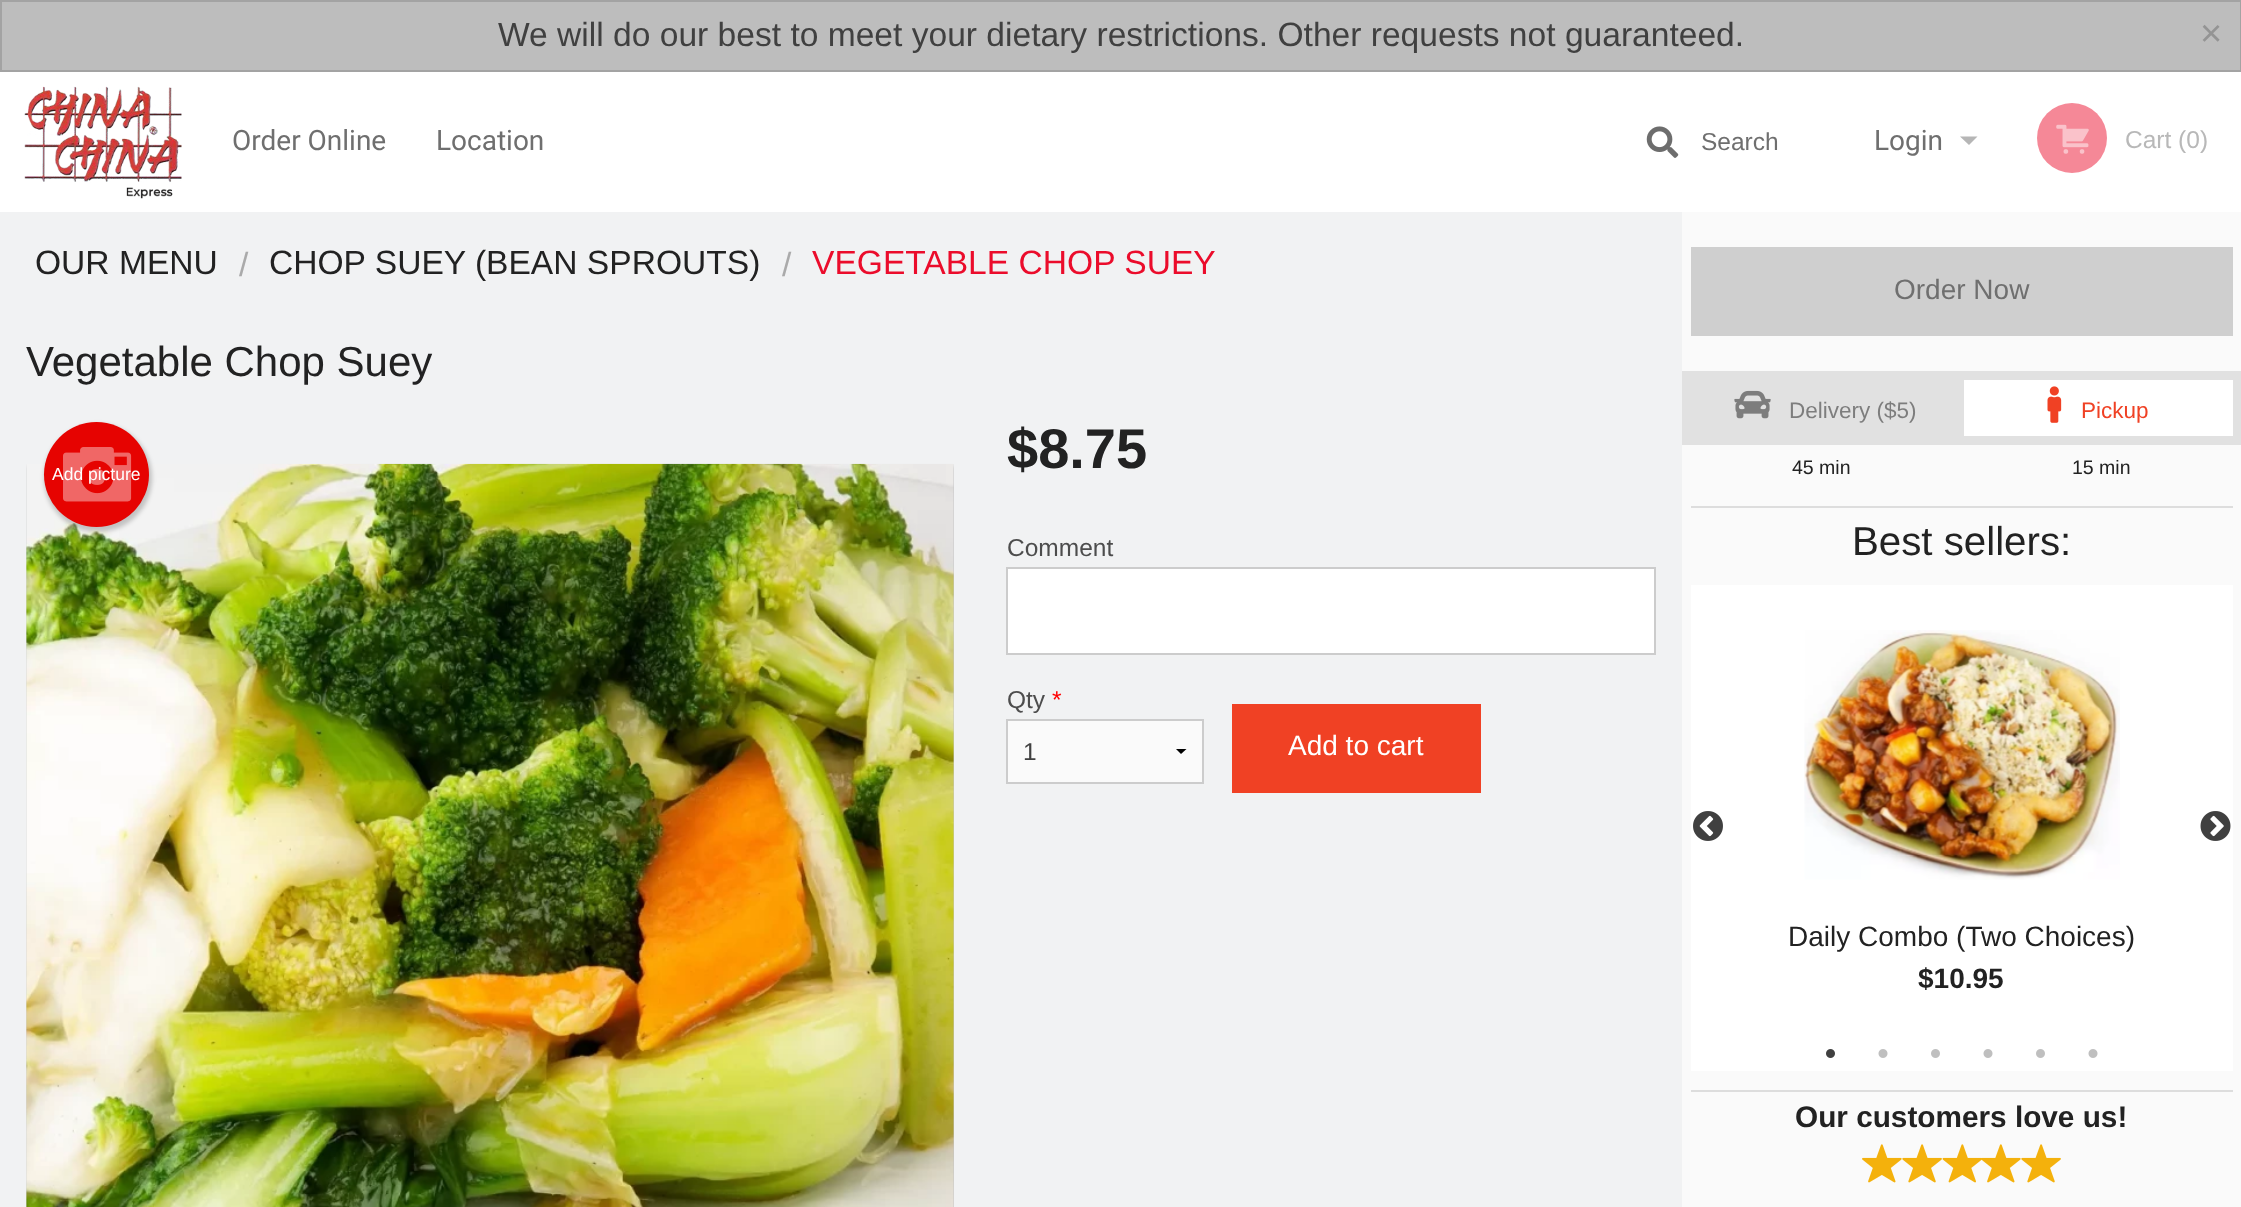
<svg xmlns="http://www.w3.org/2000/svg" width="2241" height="1207">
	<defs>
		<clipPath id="clip1"><rect x="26" y="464" width="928" height="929" /></clipPath>
	</defs>
	<rect width="100%" height="100%" fill="#F1F2F3" />
	<rect x="1" y="1" width="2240" height="70" fill="#BDBDBD" stroke="#A3A3A3" stroke-width="2" />
	<text x="498" y="46" font-family="Liberation Sans" font-size="33.6" fill="#404040">We will do our best to meet your dietary restrictions. Other requests not guaranteed.</text>
	<text x="2200" y="46" font-family="Liberation Sans" font-size="38" fill="#949494">×</text>
	<rect x="0" y="72" width="2241" height="140" fill="#FFFFFF" />
	<image x="24" y="86" width="158" height="113" href="assets/img1.png" />
	<g font-family="Roboto" font-size="28" fill="#6F6F6F">
		<text x="232" y="150">Order Online</text>
		<text x="436" y="150">Location</text>
	</g>
	<image x="1646" y="126" width="33" height="32" href="assets/img2.png" />
	<text x="1701" y="150" font-family="Liberation Sans" font-size="24.5" fill="#6F6F6F">Search</text>
	<text x="1874" y="150" font-family="Roboto" font-size="28" fill="#6F6F6F">Login</text>
	<path d="M1960 136.5H1977.5L1969 145Z" fill="#B6B6B6" />
	<circle cx="2072" cy="138" r="35" fill="#F58897" />
	<image x="2056" y="124" width="33" height="30" href="assets/img3.png" />
	<text x="2125" y="148" font-family="Liberation Sans" font-size="24.5" fill="#B8B8B8">Cart (0)</text>
	<text x="35" y="274" font-family="Liberation Sans" font-size="33.6" fill="#222222">OUR MENU</text>
	<text x="239" y="276" font-family="Liberation Sans" font-size="33.6" fill="#AAAAAA">/</text>
	<text x="269" y="274" font-family="Liberation Sans" font-size="33.6" fill="#222222">CHOP SUEY (BEAN SPROUTS)</text>
	<text x="782" y="276" font-family="Liberation Sans" font-size="33.6" fill="#AAAAAA">/</text>
	<text x="812" y="274" font-family="Liberation Sans" font-size="33.6" fill="#EB0C2B">VEGETABLE CHOP SUEY</text>
	<text x="26" y="376" font-family="Liberation Sans" font-size="42" fill="#222222">Vegetable Chop Suey</text>
	<g clip-path="url(#clip1)">
		<rect x="26" y="466" width="931" height="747" fill="#000000" fill-opacity="0.2" filter="blur(2px)" />
	</g>
	<image x="26" y="463" width="928" height="744" href="assets/img4.png" />
	<rect x="44" y="424" width="108" height="108" rx="54" fill="#000000" fill-opacity="0.2" filter="blur(2px)" />
	<circle cx="96.5" cy="474.5" r="52.5" fill="#E60301" />
	<image x="63" y="447" width="69" height="55" href="assets/img5.png" />
	<text x="52" y="480" font-family="Liberation Sans" font-size="17.5" fill="#FFFFFF">Add picture</text>
	<text x="1007" y="468" font-family="Liberation Sans" font-size="56" font-weight="700" fill="#222222">$8.75</text>
	<text x="1007" y="556" font-family="Liberation Sans" font-size="24.5" fill="#4D4D4D">Comment</text>
	<rect x="1007" y="568" width="648" height="86" fill="#FFFFFF" stroke="#CCCCCC" stroke-width="2" />
	<text x="1007" y="708" font-family="Liberation Sans" font-size="24.5" fill="#4D4D4D">Qty</text>
	<text x="1052" y="708" font-family="Liberation Sans" font-size="24.5" fill="#FF0000">*</text>
	<rect x="1008" y="721" width="194" height="61" fill="#FAFAFA" />
	<path d="M1186.5 749L1181 754L1176 749Z" fill="#000000" />
	<rect x="1007" y="720" width="196" height="63" fill="none" stroke="#CCCCCC" stroke-width="2" />
	<text x="1023" y="760" font-family="Liberation Sans" font-size="24.5" fill="#404040">1</text>
	<rect x="1232" y="704" width="249" height="89" fill="#F04124" />
	<text x="1288" y="755" font-family="Liberation Sans" font-size="28" fill="#FFFFFF">Add to cart</text>
	<rect x="1682" y="212" width="559" height="995" fill="#FAFAFA" />
	<rect x="1691" y="247" width="542" height="89" fill="#CFCFCF" />
	<text x="1894" y="299" font-family="Liberation Sans" font-size="28" fill="#6F6F6F">Order Now</text>
	<rect x="1682" y="371" width="559" height="74" fill="#E1E1E1" />
	<image x="1734" y="390" width="37" height="29" href="assets/img6.png" />
	<text x="1789" y="418" font-family="Liberation Sans" font-size="22.5" fill="#7D7D7D">Delivery ($5)</text>
	<rect x="1964" y="380" width="269" height="56" fill="#FFFFFF" />
	<image x="2047" y="386" width="15" height="37" href="assets/img7.png" />
	<text x="2081" y="418" font-family="Liberation Sans" font-size="22.5" fill="#F04124">Pickup</text>
	<g font-family="Liberation Sans" font-size="19.5" fill="#222222">
		<text x="1792" y="474">45 min</text>
		<text x="2072" y="474">15 min</text>
	</g>
	<rect x="1691" y="506" width="542" height="2" fill="#DDDDDD" />
	<text x="1852" y="555" font-family="Liberation Sans" font-size="40.25" fill="#222222">Best sellers:</text>
	<rect x="1691" y="585" width="542" height="486" fill="#FFFFFF" />
	<image x="1693" y="811" width="30" height="30" href="assets/img8.png" />
	<image x="2200" y="811" width="31" height="30" href="assets/img9.png" />
	<image x="1804" y="630" width="316" height="250" href="assets/img10.png" />
	<text x="1788" y="946" font-family="Liberation Sans" font-size="28" fill="#222222">Daily Combo (Two Choices)</text>
	<text x="1918" y="988" font-family="Liberation Sans" font-size="28" font-weight="700" fill="#222222">$10.95</text>
	<image x="1826" y="1049" width="9" height="9" href="assets/img11.png" />
	<image x="1878" y="1049" width="10" height="9" href="assets/img12.png" />
	<image x="1931" y="1049" width="9" height="9" href="assets/img13.png" />
	<image x="1983" y="1049" width="10" height="9" href="assets/img12.png" />
	<image x="2036" y="1049" width="9" height="9" href="assets/img13.png" />
	<image x="2088" y="1049" width="10" height="9" href="assets/img12.png" />
	<rect x="1691" y="1090" width="542" height="2" fill="#DDDDDD" />
	<text x="1795" y="1127" font-family="Liberation Sans" font-size="29.75" font-weight="700" fill="#222222">Our customers love us!</text>
	<image x="1862" y="1144" width="40" height="39" href="assets/img14.png" />
	<image x="1902" y="1144" width="40" height="39" href="assets/img15.png" />
	<image x="1942" y="1144" width="40" height="39" href="assets/img16.png" />
	<image x="1981" y="1144" width="40" height="39" href="assets/img17.png" />
	<image x="2021" y="1144" width="40" height="39" href="assets/img15.png" />
</svg>
